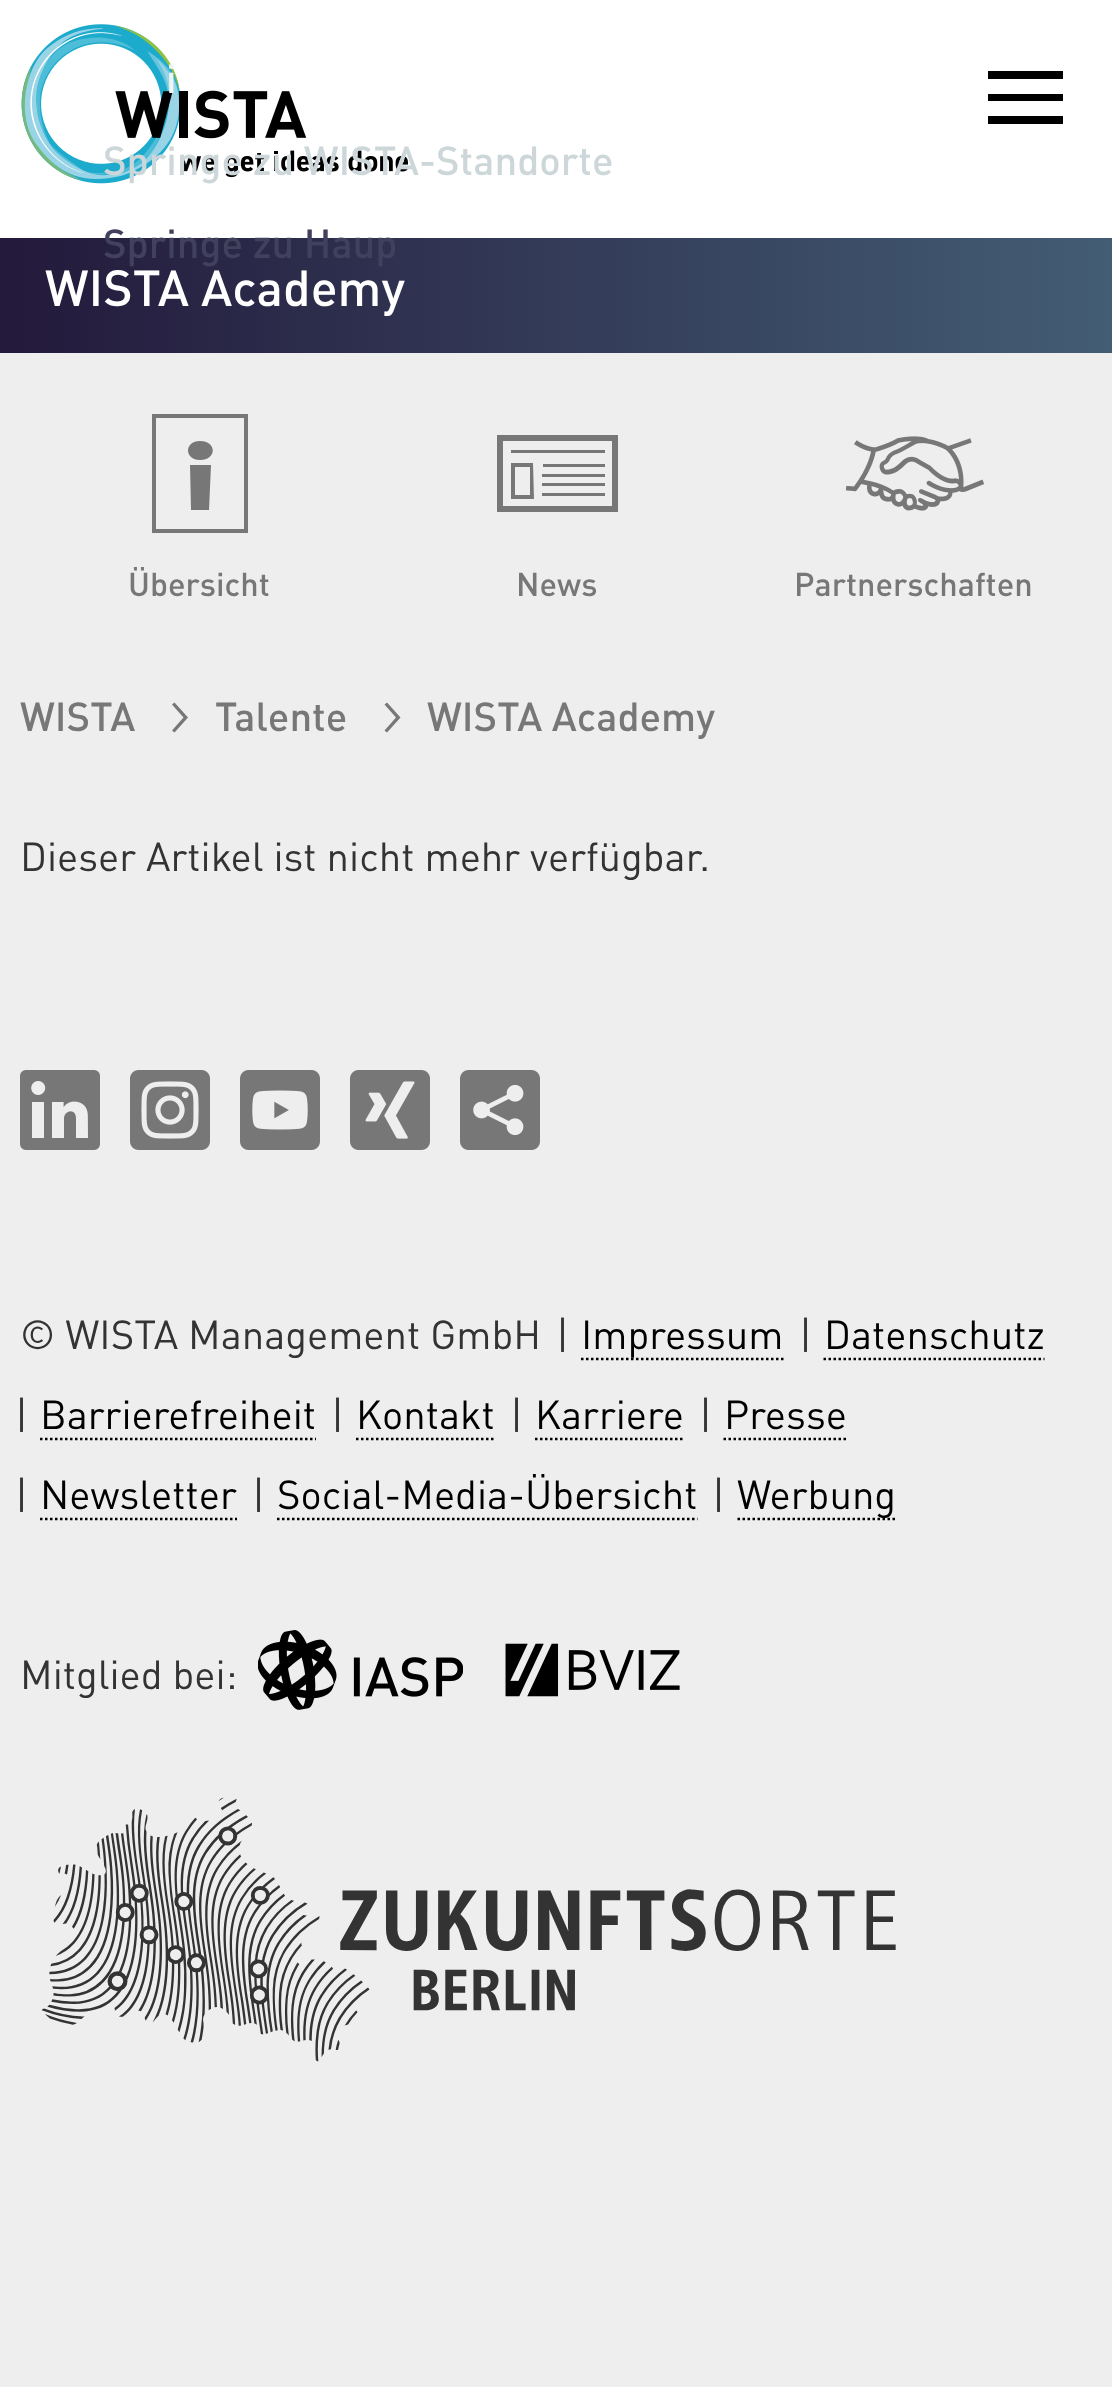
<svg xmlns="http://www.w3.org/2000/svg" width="1112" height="2387">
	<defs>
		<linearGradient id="g1" gradientUnits="userSpaceOnUse" x1="0" y1="295" x2="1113" y2="295"><stop offset="0" stop-color="#23193B" /><stop offset="1" stop-color="#435D74" /></linearGradient>
	</defs>
	<rect width="100%" height="100%" fill="#EEEEEE" />
	<rect x="0" y="0" width="1112" height="238" fill="#FFFFFF" />
	<image x="21" y="24" width="387" height="160" href="assets/img1.png" />
	<text x="166" y="93" font-family="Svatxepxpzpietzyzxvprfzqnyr" font-size="40" font-weight="500" fill="#F1F4F4">i</text>
	<text x="103" y="175" font-family="Svatxepxpzpietzyzxvprfzqnyr" font-size="40" font-weight="500" fill="#CDD7D9">Springe zu WISTA-Standorte</text>
	<rect x="0" y="238" width="1112" height="115" fill="url(#g1)" />
	<text x="103" y="258" font-family="Svatxepxpzpietzyzxvprfzqnyr" font-size="40" font-weight="500" fill="#41415D">Springe zu Haup</text>
	<path d="M988 94H1063V101H988ZM988 71H1063V79H988ZM988 116H1063V124H988Z" fill="#000000" fill-rule="evenodd" />
	<text x="45" y="306" font-family="Svatxepxpzpietzyzxvprfzqnyr" font-size="50" font-weight="500" fill="#FFFFFF">WISTA Academy</text>
	<path d="M152 414V533H248V414ZM244 529H156V418H244ZM191 510H209L211 465H190ZM200 460C217 460 217 441 200 441C184 441 184 460 200 460Z" fill="#777777" />
	<text x="128" y="596" font-family="Svatxepxpzpietzyzxvprfzqnyr" font-size="32.5" font-weight="500" fill="#777777">Übersicht</text>
	<path d="M618 512H497V435H618ZM503 506H612V441H503ZM530 495H515V467H530ZM533 463H511V499H534ZM542 493H605V496H542ZM542 483H605V486H542ZM542 474H605V477H542ZM543 464H605V467H543ZM511 450H605V453H511Z" fill="#777777" />
	<text x="516" y="596" font-family="Svatxepxpzpietzyzxvprfzqnyr" font-size="32.5" font-weight="500" fill="#777777">News</text>
	<image x="845" y="436" width="139" height="75" href="assets/img2.png" />
	<text x="794" y="596" font-family="Svatxepxpzpietzyzxvprfzqnyr" font-size="32.5" font-weight="500" fill="#777777">Partnerschaften</text>
	<text x="20" y="731" font-family="Svatxepxpzpietzyzxvprfzqnyr" font-size="40" font-weight="500" fill="#777777">WISTA</text>
	<path d="M188 717.5L174.5 702.5L172 704.5L183.5 717.5L172 730.5L174.5 732.5Z" fill="#777777" />
	<text x="215" y="731" font-family="Svatxepxpzpietzyzxvprfzqnyr" font-size="40" font-weight="500" fill="#777777">Talente</text>
	<path d="M400.5 717.5L387 702.5L384.5 704.5L396 717.5L384.5 730.5L387 732.5Z" fill="#777777" />
	<text x="427" y="731" font-family="Svatxepxpzpietzyzxvprfzqnyr" font-size="40" font-weight="500" fill="#777777">WISTA Academy</text>
	<text x="20" y="871" font-family="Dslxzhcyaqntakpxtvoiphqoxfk" font-size="40" fill="#333333">Dieser Artikel ist nicht mehr verfügbar.</text>
	<image x="20" y="1070" width="80" height="80" href="assets/img3.png" />
	<image x="130" y="1070" width="80" height="80" href="assets/img4.png" />
	<image x="240" y="1070" width="80" height="80" href="assets/img5.png" />
	<image x="350" y="1070" width="80" height="80" href="assets/img6.png" />
	<image x="460" y="1070" width="80" height="80" href="assets/img7.png" />
	<g font-family="Dslxzhcyaqntakpxtvoiphqoxfk" font-size="40" fill="#333333">
		<text x="20" y="1349">© WISTA Management GmbH</text>
		<text x="556" y="1349">|</text>
	</g>
	<path d="M581 1359H783.5" fill="none" stroke="#000000" stroke-width="2.5" stroke-dasharray="2.5 2.5" />
	<text x="581" y="1349" font-family="Dslxzhcyaqntakpxtvoiphqoxfk" font-size="40" fill="#000000">Impressum</text>
	<text x="799" y="1349" font-family="Dslxzhcyaqntakpxtvoiphqoxfk" font-size="40" fill="#333333">|</text>
	<text x="824" y="1349" font-family="Dslxzhcyaqntakpxtvoiphqoxfk" font-size="40" fill="#000000">Datenschutz</text>
	<path d="M823.5 1359H1044.5" fill="none" stroke="#000000" stroke-width="2.5" stroke-dasharray="2.5 2.5" />
	<text x="15" y="1429" font-family="Dslxzhcyaqntakpxtvoiphqoxfk" font-size="40" fill="#333333">|</text>
	<text x="40" y="1429" font-family="Dslxzhcyaqntakpxtvoiphqoxfk" font-size="40" fill="#000000">Barrierefreiheit</text>
	<path d="M40 1439H316" fill="none" stroke="#000000" stroke-width="2.5" stroke-dasharray="2.5 2.5" />
	<text x="331" y="1429" font-family="Dslxzhcyaqntakpxtvoiphqoxfk" font-size="40" fill="#333333">|</text>
	<text x="356" y="1429" font-family="Dslxzhcyaqntakpxtvoiphqoxfk" font-size="40" fill="#000000">Kontakt</text>
	<path d="M356 1439H495" fill="none" stroke="#000000" stroke-width="2.5" stroke-dasharray="2.5 2.5" />
	<text x="510" y="1429" font-family="Dslxzhcyaqntakpxtvoiphqoxfk" font-size="40" fill="#333333">|</text>
	<text x="535" y="1429" font-family="Dslxzhcyaqntakpxtvoiphqoxfk" font-size="40" fill="#000000">Karriere</text>
	<path d="M535 1439H683.5" fill="none" stroke="#000000" stroke-width="2.5" stroke-dasharray="2.5 2.5" />
	<text x="699" y="1429" font-family="Dslxzhcyaqntakpxtvoiphqoxfk" font-size="40" fill="#333333">|</text>
	<text x="724" y="1429" font-family="Dslxzhcyaqntakpxtvoiphqoxfk" font-size="40" fill="#000000">Presse</text>
	<path d="M723.5 1439H846.5" fill="none" stroke="#000000" stroke-width="2.5" stroke-dasharray="2.5 2.5" />
	<text x="15" y="1509" font-family="Dslxzhcyaqntakpxtvoiphqoxfk" font-size="40" fill="#333333">|</text>
	<text x="40" y="1509" font-family="Dslxzhcyaqntakpxtvoiphqoxfk" font-size="40" fill="#000000">Newsletter</text>
	<path d="M40 1519H237" fill="none" stroke="#000000" stroke-width="2.5" stroke-dasharray="2.5 2.5" />
	<text x="252" y="1509" font-family="Dslxzhcyaqntakpxtvoiphqoxfk" font-size="40" fill="#333333">|</text>
	<text x="277" y="1509" font-family="Dslxzhcyaqntakpxtvoiphqoxfk" font-size="40" fill="#000000">Social-Media-Übersicht</text>
	<path d="M277 1519H697.5" fill="none" stroke="#000000" stroke-width="2.5" stroke-dasharray="2.5 2.5" />
	<text x="712" y="1509" font-family="Dslxzhcyaqntakpxtvoiphqoxfk" font-size="40" fill="#333333">|</text>
	<path d="M737.5 1519H896.5" fill="none" stroke="#000000" stroke-width="2.5" stroke-dasharray="2.5 2.5" />
	<text x="737" y="1509" font-family="Dslxzhcyaqntakpxtvoiphqoxfk" font-size="40" fill="#000000">Werbung</text>
	<text x="20" y="1689" font-family="Dslxzhcyaqntakpxtvoiphqoxfk" font-size="40" fill="#333333">Mitglied bei:</text>
	<image x="258" y="1630" width="205" height="80" href="assets/img8.png" />
	<image x="505" y="1643" width="175" height="54" href="assets/img9.png" />
	<image x="41" y="1797" width="855" height="265" href="assets/img10.png" />
</svg>
